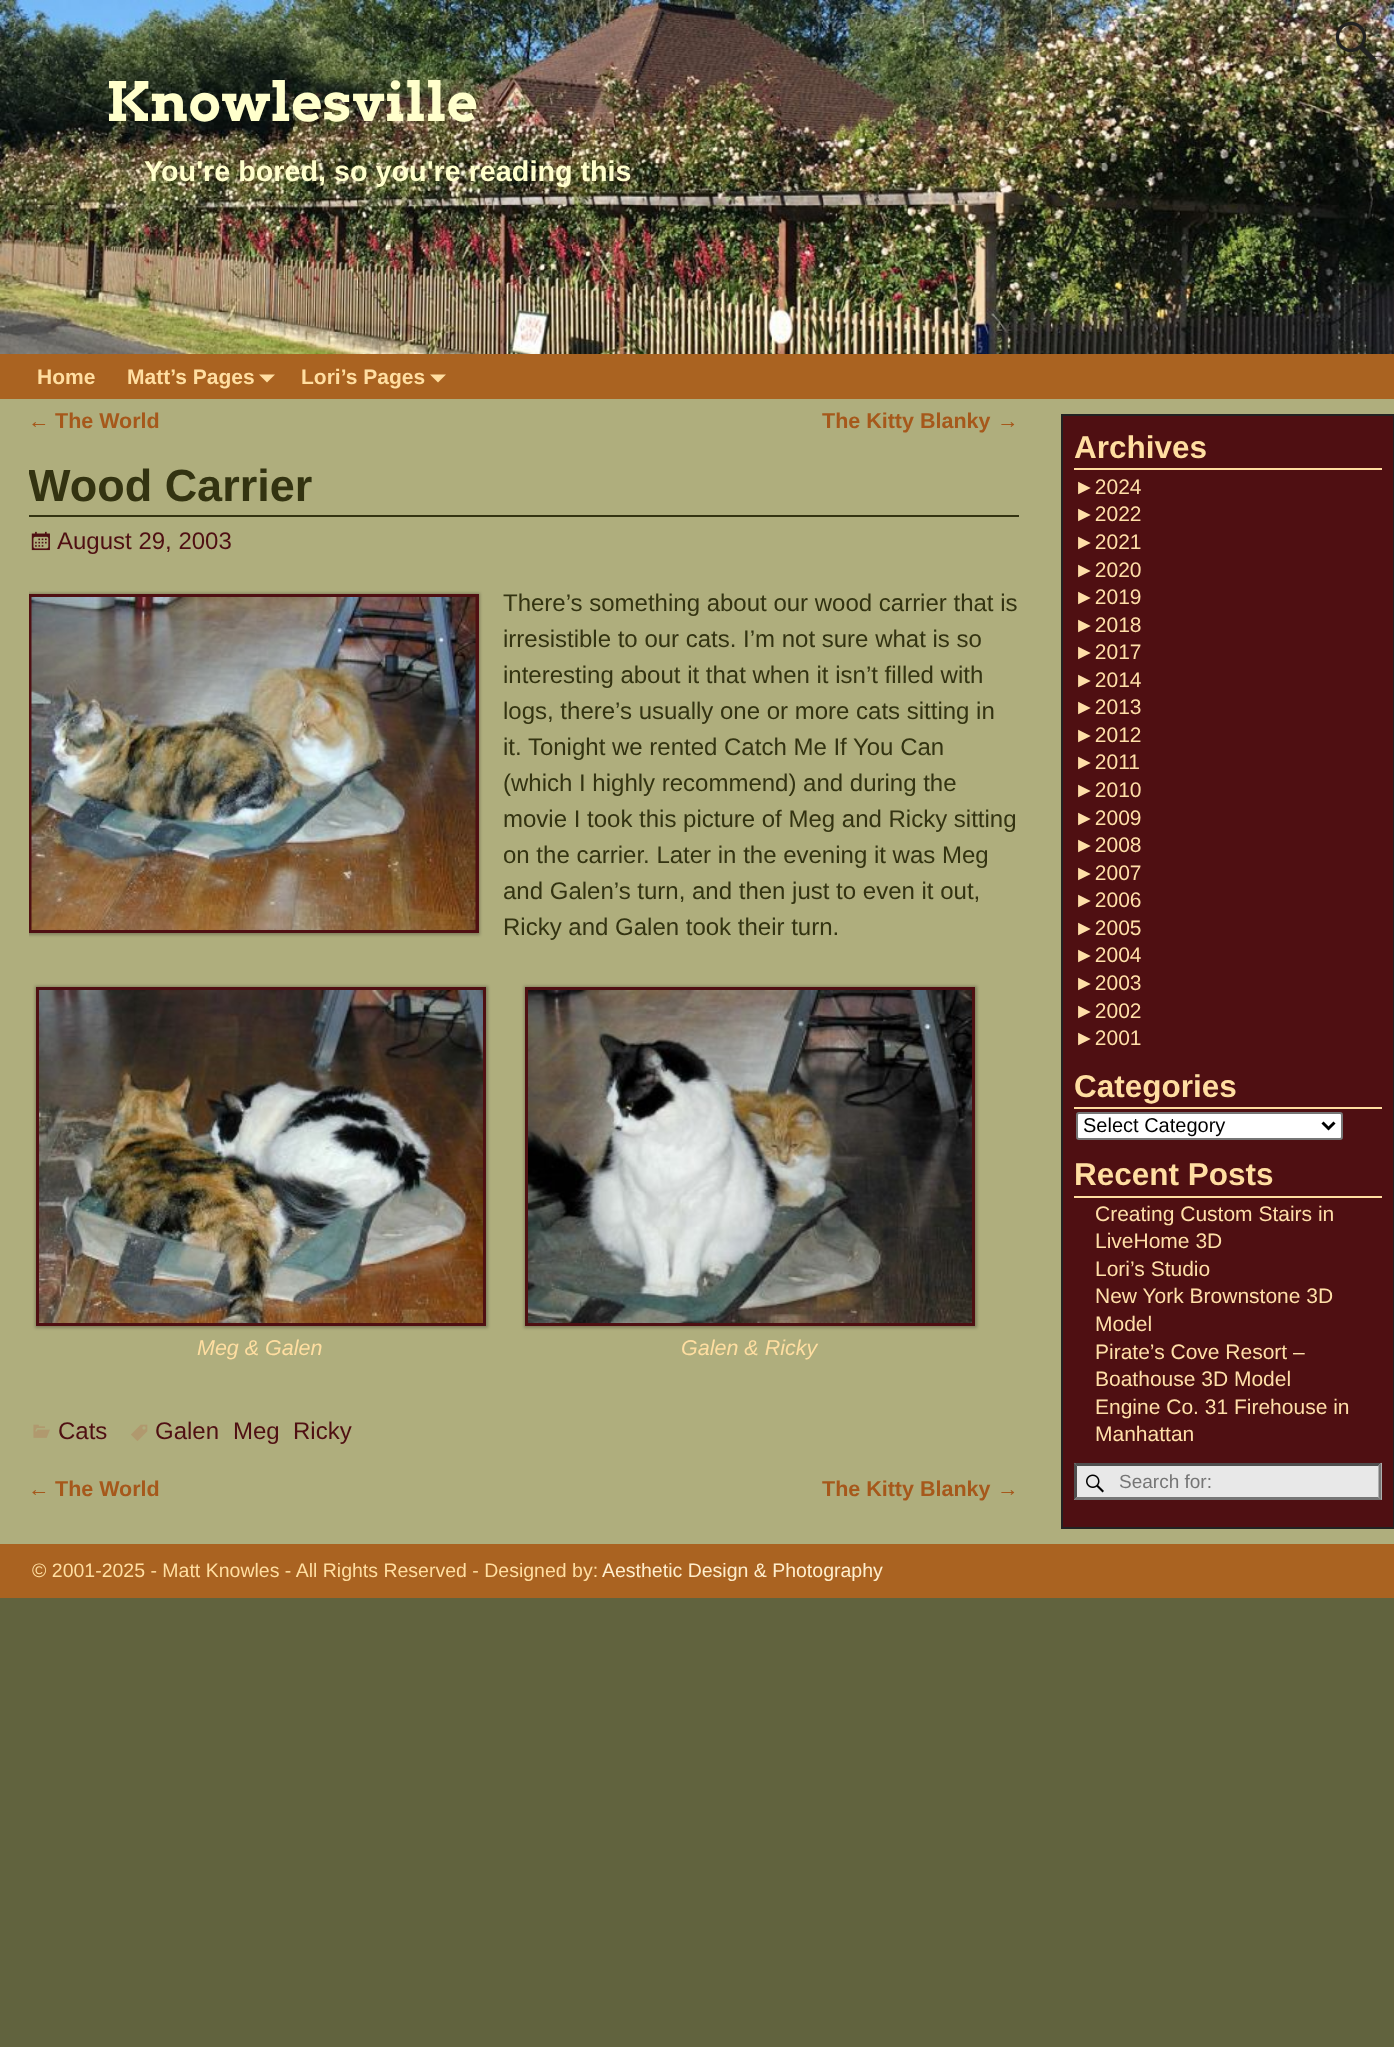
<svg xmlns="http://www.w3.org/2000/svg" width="1394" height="2047">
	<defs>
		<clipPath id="clip1"><rect x="29" y="449" width="990" height="1002" /></clipPath>
		<clipPath id="clip2"><rect x="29" y="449" width="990" height="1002" /></clipPath>
		<clipPath id="clip3"><rect x="1074" y="1463" width="308" height="37" /></clipPath>
	</defs>
	<rect width="100%" height="100%" fill="#61633E" />
	<image x="0" y="0" width="1394" height="354" href="assets/img1.png" />
	<image x="1335" y="21" width="42" height="41" href="assets/img2.png" />
	<text x="106" y="121" font-family="Arvo" font-size="54" font-weight="700" fill="#FFFFCC">Knowlesville</text>
	<text x="144" y="181" font-family="Liberation Sans" font-size="28.75" font-weight="700" fill="#FFFFCC">You're bored, so you're reading this</text>
	<rect x="0" y="354" width="1394" height="45" fill="#AA6321" />
	<g font-family="Liberation Sans" font-size="21" font-weight="700" fill="#FFDEA1">
		<text x="37" y="384">Home</text>
		<text x="127" y="384">Matt’s Pages</text>
	</g>
	<path d="M259 374.5H275L267 382.5Z" fill="#FFDEA1" />
	<text x="301" y="384" font-family="Liberation Sans" font-size="21" font-weight="700" fill="#FFDEA1">Lori’s Pages</text>
	<path d="M430 374.5H446L438 382.5Z" fill="#FFDEA1" />
	<rect x="0" y="399" width="1394" height="1145" fill="#AFAE7D" />
	<text x="28" y="428" font-family="Liberation Sans" font-size="21.5" fill="#A6581B">←</text>
	<g font-family="Liberation Sans" font-size="21.5" font-weight="700" fill="#A6581B">
		<text x="55" y="428">The World</text>
		<text x="822" y="428">The Kitty Blanky</text>
	</g>
	<text x="997" y="428" font-family="Liberation Sans" font-size="21.5" fill="#A6581B">→</text>
	<rect x="29" y="515" width="990" height="2" fill="#333311" />
	<g clip-path="url(#clip1)">
		<text x="28" y="501" font-family="Liberation Sans" font-size="45" font-weight="700" fill="#333311">Wood Carrier</text>
	</g>
	<image x="31" y="531" width="19" height="20" href="assets/img3.png" />
	<text x="57" y="549" font-family="Liberation Sans" font-size="24" fill="#4F0F12">August 29, 2003</text>
	<g clip-path="url(#clip2)">
		<rect x="27" y="593" width="453" height="342" fill="#000000" fill-opacity="0.25" filter="blur(1.5px)" />
	</g>
	<rect x="29" y="594" width="450" height="339" fill="#4F0F12" />
	<image x="31" y="597" width="445" height="333" href="assets/img4.png" />
	<g font-family="Liberation Sans" font-size="24" fill="#333311">
		<text x="503" y="611">There’s something about our wood carrier that is</text>
		<text x="503" y="647">irresistible to our cats. I’m not sure what is so</text>
		<text x="503" y="683">interesting about it that when it isn’t filled with</text>
		<text x="503" y="719">logs, there’s usually one or more cats sitting in</text>
		<text x="503" y="755">it. Tonight we rented Catch Me If You Can</text>
		<text x="503" y="791">(which I highly recommend) and during the</text>
		<text x="503" y="827">movie I took this picture of Meg and Ricky sitting</text>
		<text x="503" y="863">on the carrier. Later in the evening it was Meg</text>
		<text x="503" y="899">and Galen’s turn, and then just to even it out,</text>
		<text x="503" y="935">Ricky and Galen took their turn.</text>
	</g>
	<rect x="35" y="986" width="453" height="342" fill="#000000" fill-opacity="0.25" filter="blur(1.5px)" />
	<rect x="36" y="987" width="450" height="339" fill="#4F0F12" />
	<image x="39" y="990" width="444" height="333" href="assets/img5.png" />
	<text x="197" y="1355" font-family="Liberation Sans" font-size="21.5" font-style="italic" fill="#FFDEA1">Meg &amp; Galen</text>
	<rect x="524" y="986" width="453" height="342" fill="#000000" fill-opacity="0.25" filter="blur(1.5px)" />
	<rect x="525" y="987" width="450" height="339" fill="#4F0F12" />
	<image x="528" y="990" width="444" height="333" href="assets/img6.png" />
	<text x="681" y="1355" font-family="Liberation Sans" font-size="21.5" font-style="italic" fill="#FFDEA1">Galen &amp; Ricky</text>
	<image x="33" y="1424" width="17" height="14" href="assets/img7.png" />
	<text x="58" y="1439" font-family="Liberation Sans" font-size="24" fill="#4F0F12">Cats</text>
	<image x="131" y="1424" width="17" height="17" href="assets/img8.png" />
	<g font-family="Liberation Sans" font-size="24" fill="#4F0F12">
		<text x="155" y="1439">Galen</text>
		<text x="233" y="1439">Meg</text>
		<text x="293" y="1439">Ricky</text>
	</g>
	<text x="28" y="1496" font-family="Liberation Sans" font-size="21.5" fill="#A6581B">←</text>
	<g font-family="Liberation Sans" font-size="21.5" font-weight="700" fill="#A6581B">
		<text x="55" y="1496">The World</text>
		<text x="822" y="1496">The Kitty Blanky</text>
	</g>
	<text x="997" y="1496" font-family="Liberation Sans" font-size="21.5" fill="#A6581B">→</text>
	<rect x="1062" y="415" width="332" height="1113" fill="#4F0F12" stroke="#222222" stroke-width="2" />
	<rect x="1074" y="468" width="308" height="2" fill="#FFDEA1" />
	<text x="1074" y="458" font-family="Liberation Sans" font-size="31.5" font-weight="700" fill="#FFDEA1">Archives</text>
	<g font-family="Liberation Sans" font-size="21" fill="#FFDFA8">
		<text x="1074" y="494">►2024</text>
		<text x="1074" y="521">►2022</text>
		<text x="1074" y="549">►2021</text>
		<text x="1074" y="577">►2020</text>
		<text x="1074" y="604">►2019</text>
		<text x="1074" y="632">►2018</text>
		<text x="1074" y="659">►2017</text>
		<text x="1074" y="687">►2014</text>
		<text x="1074" y="714">►2013</text>
		<text x="1074" y="742">►2012</text>
		<text x="1074" y="769">►2011</text>
		<text x="1074" y="797">►2010</text>
		<text x="1074" y="825">►2009</text>
		<text x="1074" y="852">►2008</text>
		<text x="1074" y="880">►2007</text>
		<text x="1074" y="907">►2006</text>
		<text x="1074" y="935">►2005</text>
		<text x="1074" y="962">►2004</text>
		<text x="1074" y="990">►2003</text>
		<text x="1074" y="1018">►2002</text>
		<text x="1074" y="1045">►2001</text>
	</g>
	<rect x="1074" y="1107" width="308" height="2" fill="#FFDEA1" />
	<text x="1074" y="1097" font-family="Liberation Sans" font-size="31.5" font-weight="700" fill="#FFDEA1">Categories</text>
	<rect x="1077" y="1113" width="265" height="26" rx="2" fill="#FFFFFF" stroke="#767676" stroke-width="2" />
	<path d="M1322.5 1122.5L1328.5 1128.5L1334.5 1122.5" fill="none" stroke="#000000" stroke-width="3" />
	<text x="1083" y="1132" font-family="Liberation Sans" font-size="20" fill="#000000">Select Category</text>
	<rect x="1074" y="1196" width="308" height="2" fill="#FFDEA1" />
	<text x="1074" y="1185" font-family="Liberation Sans" font-size="31.5" font-weight="700" fill="#FFDEA1">Recent Posts</text>
	<g font-family="Liberation Sans" font-size="21" fill="#FFDFA8">
		<text x="1095" y="1221">Creating Custom Stairs in</text>
		<text x="1095" y="1248">LiveHome 3D</text>
		<text x="1095" y="1276">Lori’s Studio</text>
		<text x="1095" y="1303">New York Brownstone 3D</text>
		<text x="1095" y="1331">Model</text>
		<text x="1095" y="1359">Pirate’s Cove Resort –</text>
		<text x="1095" y="1386">Boathouse 3D Model</text>
		<text x="1095" y="1414">Engine Co. 31 Firehouse in</text>
		<text x="1095" y="1441">Manhattan</text>
	</g>
	<rect x="1074" y="1463" width="308" height="37" fill="#E8E8E8" />
	<image x="1086" y="1474" width="18" height="19" href="assets/img9.png" />
	<g clip-path="url(#clip3)">
		<path d="M1074 1462H1382L1378 1466H1077Z" fill="#4F4F4F" />
	</g>
	<path d="M1381.5 1462.5V1500L1378.5 1497V1465.5Z" fill="#767676" />
	<path d="M1382 1500H1074L1077 1497H1378Z" fill="#767676" />
	<path d="M1074 1500V1462.5L1077 1465.5V1497Z" fill="#4F4F4F" />
	<text x="1119" y="1488" font-family="Liberation Sans" font-size="19" fill="#757575">Search for:</text>
	<rect x="0" y="1544" width="1394" height="54" fill="#AA6321" />
	<text x="32" y="1577" font-family="Liberation Sans" font-size="19.5" fill="#FFDEA1">© 2001-2025 - Matt Knowles - All Rights Reserved - Designed by:</text>
	<text x="602" y="1577" font-family="Liberation Sans" font-size="19.5" fill="#FFEECC">Aesthetic Design &amp; Photography</text>
</svg>
